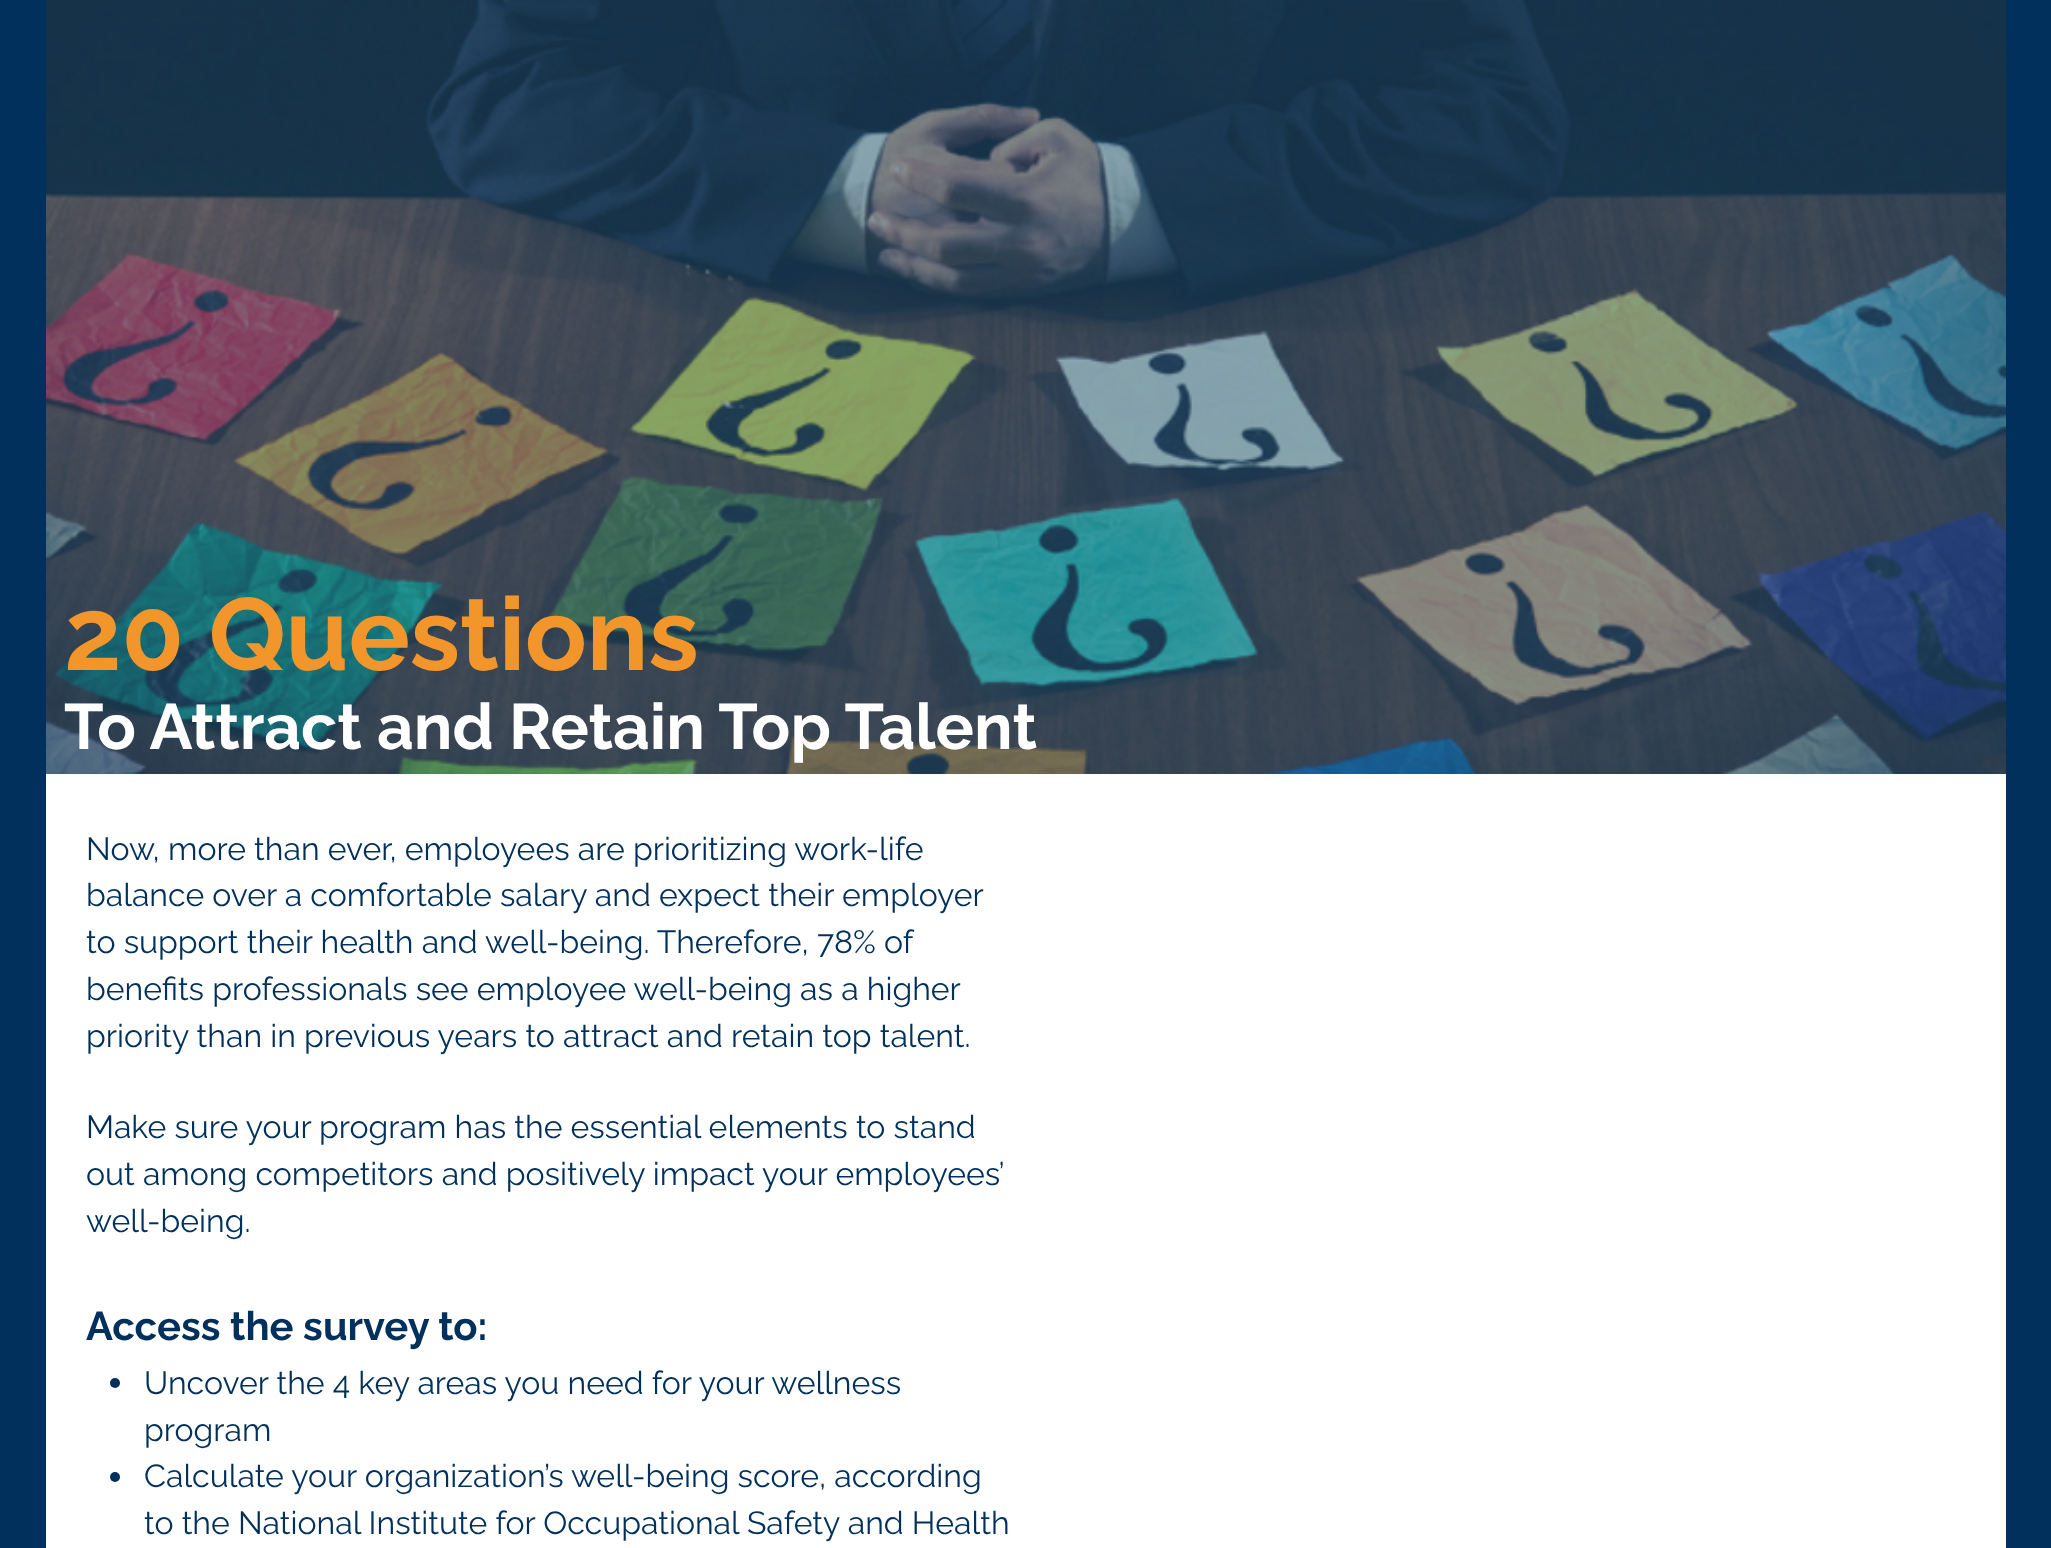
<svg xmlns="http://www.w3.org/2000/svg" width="2051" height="1548">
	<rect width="100%" height="100%" fill="#00305B" />
	<image x="46" y="0" width="1960" height="774" href="assets/img1.png" />
	<text x="64" y="670" font-family="Raleway" font-size="102" font-weight="700" fill="#F2962C">20 Questions</text>
	<text x="64" y="749" font-family="Raleway" font-size="64" font-weight="700" fill="#FFFFFF">To Attract and Retain Top Talent</text>
	<rect x="46" y="774" width="1960" height="774" fill="#FFFFFF" />
	<g font-family="Raleway" font-size="32" fill="#00305B">
		<text x="86" y="860">Now, more than ever, employees are prioritizing work-life</text>
		<text x="86" y="906">balance over a comfortable salary and expect their employer</text>
		<text x="86" y="953">to support their health and well-being. Therefore, 78% of</text>
		<text x="86" y="1000">benefits professionals see employee well-being as a higher</text>
		<text x="86" y="1047">priority than in previous years to attract and retain top talent.</text>
		<text x="86" y="1138">Make sure your program has the essential elements to stand</text>
		<text x="86" y="1185">out among competitors and positively impact your employees’</text>
		<text x="86" y="1232">well-being.</text>
	</g>
	<text x="86" y="1340" font-family="Raleway" font-size="40" font-weight="700" fill="#00305B">Access the survey to:</text>
	<circle cx="115" cy="1383" r="5" fill="#00305B" />
	<g font-family="Raleway" font-size="32" fill="#00305B">
		<text x="144" y="1394">Uncover the 4 key areas you need for your wellness</text>
		<text x="144" y="1441">program</text>
	</g>
	<circle cx="115" cy="1477" r="5" fill="#00305B" />
	<g font-family="Raleway" font-size="32" fill="#00305B">
		<text x="144" y="1487">Calculate your organization’s well-being score, according</text>
		<text x="144" y="1534">to the National Institute for Occupational Safety and Health</text>
	</g>
</svg>
